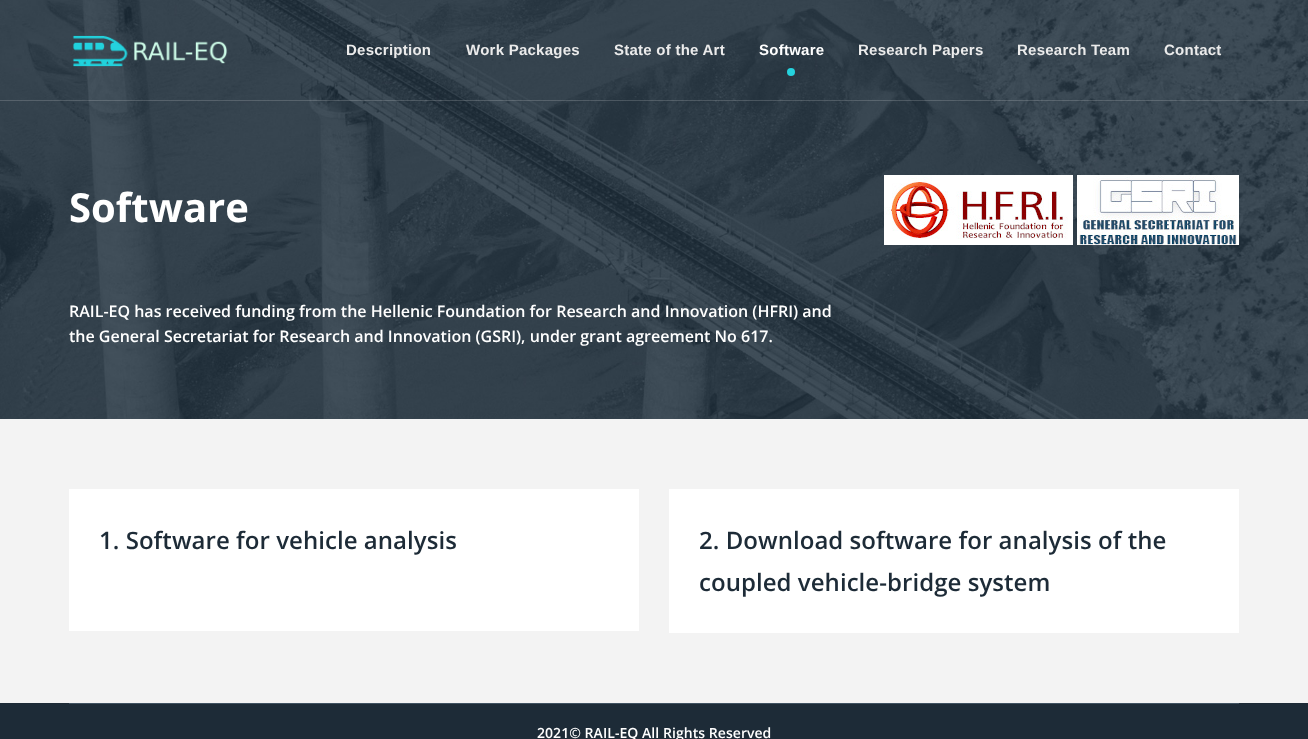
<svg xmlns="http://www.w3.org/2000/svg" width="1308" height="739">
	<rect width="100%" height="100%" fill="#FFFFFF" />
	<image x="0" y="0" width="1308" height="419" href="assets/img2.png" />
	<rect x="0" y="100" width="1308" height="1" fill="#FFFFFF" fill-opacity="0.17" />
	<image x="72" y="35" width="156" height="32" href="assets/img1.png" />
	<g font-family="Liberation Sans" font-size="15" font-weight="700" letter-spacing="0.25" fill="#EBEBEB">
		<text x="346" y="55">Description</text>
		<text x="466" y="55">Work Packages</text>
		<text x="614" y="55">State of the Art</text>
	</g>
	<text x="759" y="55" font-family="Liberation Sans" font-size="15" font-weight="700" letter-spacing="0.25" fill="#FFFFFF">Software</text>
	<circle cx="791" cy="72" r="4" fill="#25D3DE" />
	<g font-family="Liberation Sans" font-size="15" font-weight="700" letter-spacing="0.25" fill="#EBEBEB">
		<text x="858" y="55">Research Papers</text>
		<text x="1017" y="55">Research Team</text>
		<text x="1164" y="55">Contact</text>
	</g>
	<text x="69" y="222" font-family="Open Sans" font-size="40" font-weight="700" fill="#FFFFFF">Software</text>
	<image x="884" y="175" width="189" height="70" href="assets/img3.png" />
	<image x="1077" y="175" width="162" height="70" href="assets/img4.png" />
	<g font-family="Open Sans" font-size="16" font-weight="600" fill="#FFFFFF">
		<text x="69" y="317">RAIL-EQ has received funding from the Hellenic Foundation for Research and Innovation (HFRI) and</text>
		<text x="69" y="342">the General Secretariat for Research and Innovation (GSRI), under grant agreement No 617.</text>
	</g>
	<rect x="0" y="419" width="1308" height="284" fill="#F3F3F3" />
	<rect x="69" y="489" width="570" height="142" fill="#FFFFFF" />
	<text x="99" y="549" font-family="Open Sans" font-size="24" font-weight="600" letter-spacing="0.05" fill="#1D2B37">1. Software for vehicle analysis</text>
	<rect x="669" y="489" width="570" height="144" fill="#FFFFFF" />
	<g font-family="Open Sans" font-size="24" font-weight="600" letter-spacing="0.05" fill="#1D2B37">
		<text x="699" y="549">2. Download software for analysis of the</text>
		<text x="699" y="591">coupled vehicle-bridge system</text>
	</g>
	<rect x="0" y="703" width="1308" height="36" fill="#1D2B37" />
	<rect x="69" y="703" width="1170" height="1" fill="#405261" />
	<text x="537" y="738" font-family="Open Sans" font-size="14" font-weight="600" letter-spacing="0.05" fill="#FFFFFF">2021© RAIL-EQ All Rights Reserved</text>
</svg>
